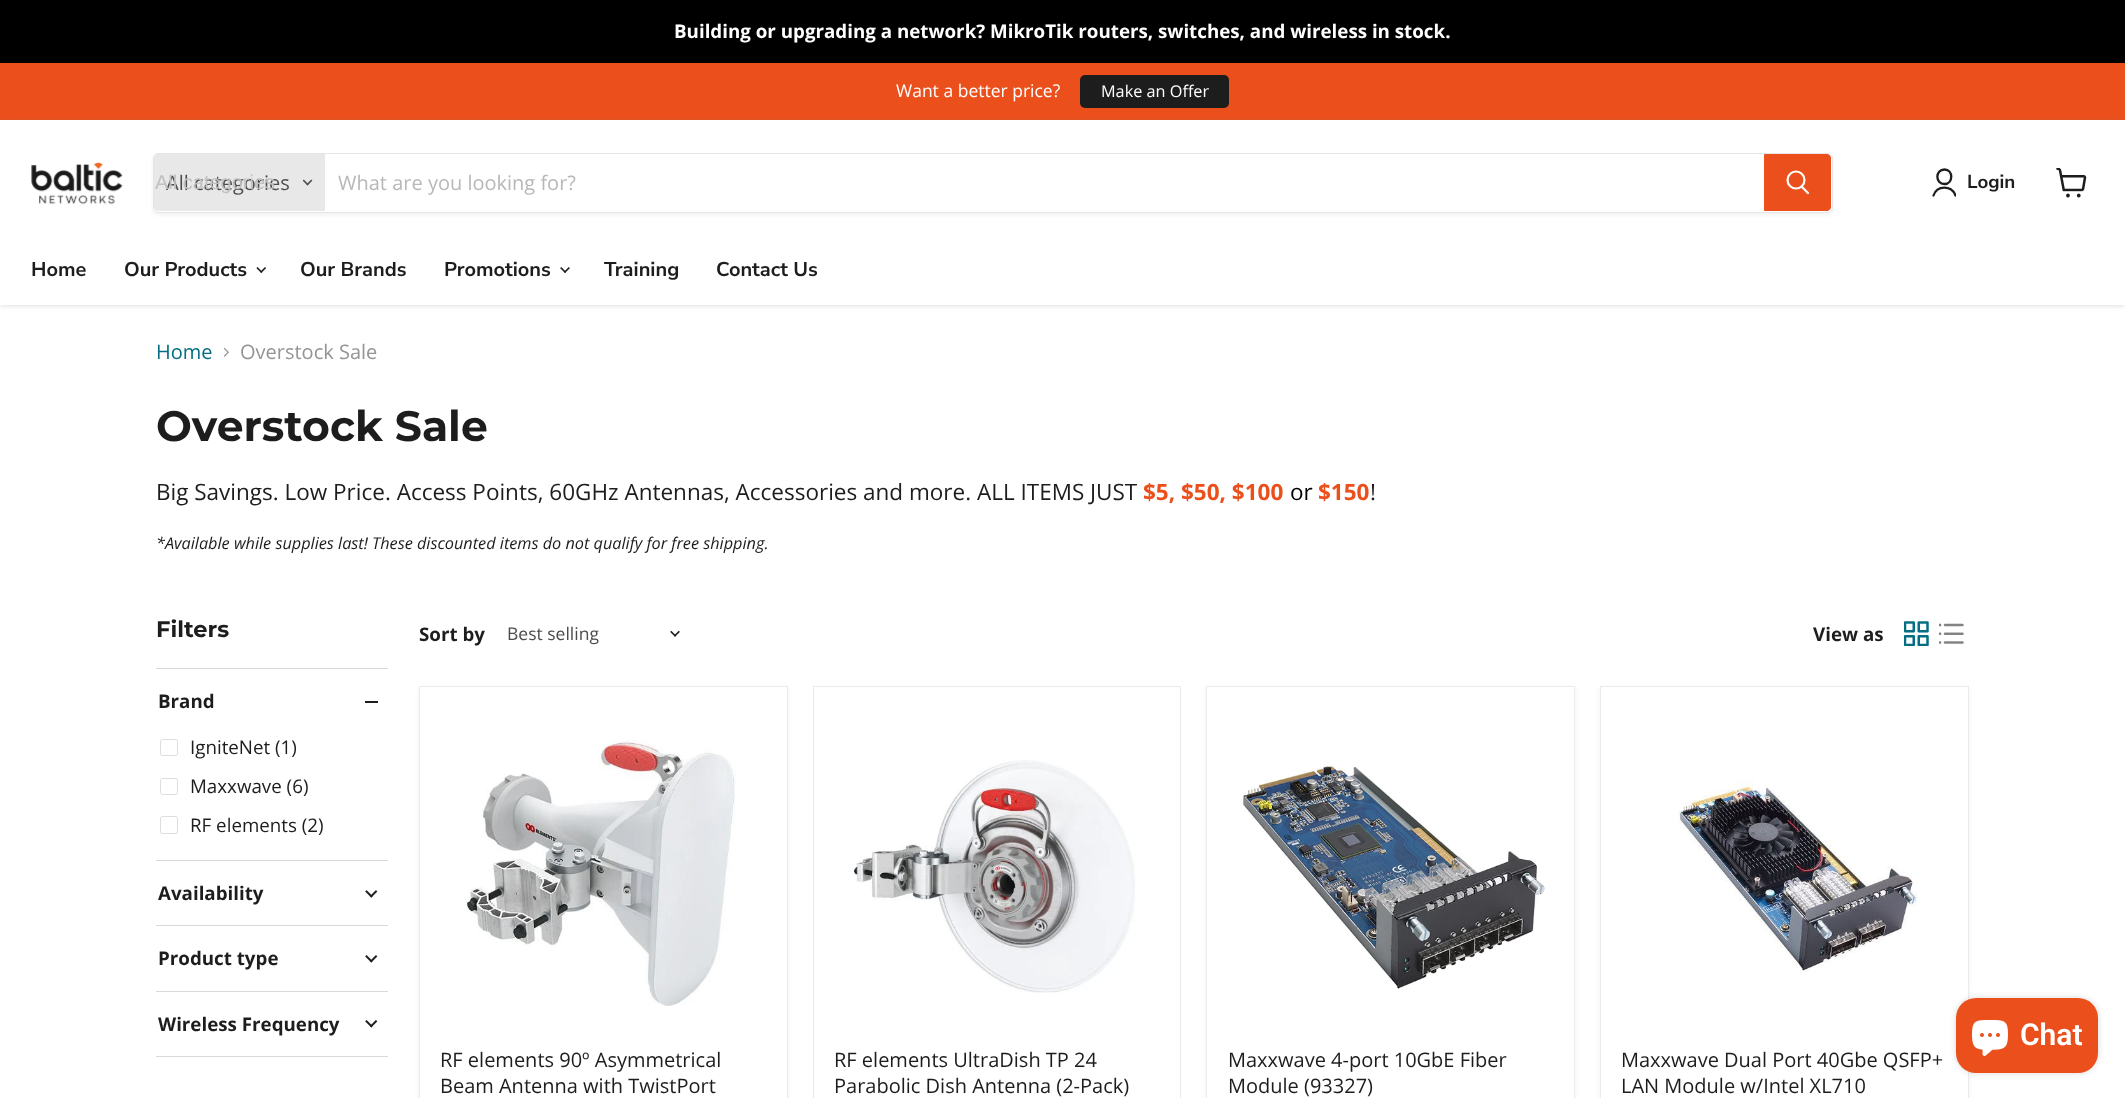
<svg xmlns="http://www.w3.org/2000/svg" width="2125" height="1098">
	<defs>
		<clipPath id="clip1"><path d="M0 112H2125V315H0ZM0 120H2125V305H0Z" clip-rule="evenodd" /></clipPath>
		<clipPath id="clip2"><path d="M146 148H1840V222H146ZM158 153H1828C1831 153 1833 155 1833 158V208C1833 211 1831 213 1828 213H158C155 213 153 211 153 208V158C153 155 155 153 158 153Z" clip-rule="evenodd" /></clipPath>
		<clipPath id="clip3"><rect x="1931" y="168" width="25" height="30" /></clipPath>
	</defs>
	<rect width="100%" height="100%" fill="#FFFFFF" />
	<rect x="0" y="0" width="2125" height="63" fill="#000000" />
	<text x="674" y="38" font-family="Open Sans" font-size="18.75" font-weight="700" fill="#FFFFFF">Building or upgrading a network? MikroTik routers, switches, and wireless in stock.</text>
	<rect x="0" y="63" width="2125" height="57" fill="#EB501C" />
	<text x="896" y="97" font-family="Open Sans" font-size="17.5" fill="#FFFFFF">Want a better price?</text>
	<rect x="1080" y="75" width="149" height="33" rx="5" fill="#1D1D1D" />
	<text x="1101" y="97" font-family="Open Sans" font-size="16.25" fill="#FFFFFF">Make an Offer</text>
	<g clip-path="url(#clip1)">
		<rect x="0" y="121" width="2125" height="185" fill="#808080" fill-opacity="0.25" filter="blur(2.5px)" />
	</g>
	<image x="31" y="162" width="92" height="43" href="assets/img1.png" />
	<g clip-path="url(#clip2)">
		<rect x="153" y="155" width="1680" height="60" rx="5" fill="#808080" fill-opacity="0.11" filter="blur(2px)" />
	</g>
	<rect x="153.5" y="153.5" width="1679" height="59" rx="4.5" fill="none" stroke="#808080" stroke-opacity="0.2" />
	<path d="M158 154H325V211H158C156 211 154 209 154 207V158C154 156 156 154 158 154Z" fill="#E8E8E8" />
	<text x="166" y="190" font-family="Open Sans" font-size="20" fill="#4D4D4D">All categories</text>
	<text x="155" y="189" font-family="Liberation Sans" font-size="20" fill="#C0C0C0">All categories</text>
	<image x="303" y="179" width="10" height="7" href="assets/img2.png" />
	<text x="338" y="190" font-family="Open Sans" font-size="20" fill="#B8B8B8">What are you looking for?</text>
	<path d="M1764.5 154.5H1827C1829 154.5 1830.5 156 1830.5 158V207C1830.5 209 1829 210.5 1827 210.5H1764.5Z" fill="#EB501C" stroke="#EB501C" />
	<path d="M1808 193L1802 187" fill="none" stroke="#FFFFFF" stroke-width="2.2" stroke-linecap="round" />
	<circle cx="1796" cy="180" r="8.5" fill="none" stroke="#FFFFFF" stroke-width="2.2" />
	<path d="M1944.5 184C1953.5 184 1953.5 169.5 1944.5 169.5C1935 169.5 1935 184 1944.5 184Z" fill="none" stroke="#1D1D1D" stroke-width="2.3" stroke-linecap="round" stroke-linejoin="round" />
	<g clip-path="url(#clip3)">
		<path d="M1955.5 195.5C1951.5 185 1937 185 1933.5 195.5" fill="none" stroke="#1D1D1D" stroke-width="2.3" stroke-linecap="round" stroke-linejoin="round" />
	</g>
	<text x="1967" y="188" font-family="Nunito Sans" font-size="18.75" font-weight="700" fill="#1D1D1D">Login</text>
	<image x="2056" y="168" width="31" height="30" href="assets/img3.png" />
	<g font-family="Nunito Sans" font-size="20" font-weight="700" fill="#1D1D1D">
		<text x="31" y="276">Home</text>
		<text x="124" y="276">Our Products</text>
	</g>
	<image x="256" y="267" width="10" height="6" href="assets/img4.png" />
	<g font-family="Nunito Sans" font-size="20" font-weight="700" fill="#1D1D1D">
		<text x="300" y="276">Our Brands</text>
		<text x="444" y="276">Promotions</text>
	</g>
	<image x="560" y="267" width="10" height="6" href="assets/img5.png" />
	<g font-family="Nunito Sans" font-size="20" font-weight="700" fill="#1D1D1D">
		<text x="604" y="276">Training</text>
		<text x="716" y="276">Contact Us</text>
	</g>
	<text x="156" y="359" font-family="Open Sans" font-size="20" fill="#046E82">Home</text>
	<image x="223" y="347" width="6" height="10" href="assets/img6.png" />
	<text x="240" y="359" font-family="Open Sans" font-size="20" fill="#949494">Overstock Sale</text>
	<text x="156" y="441" font-family="Montserrat" font-size="42.5" font-weight="700" fill="#1D1D1D">Overstock Sale</text>
	<text x="156" y="500" font-family="Open Sans" font-size="22.5" fill="#1D1D1D">Big Savings. Low Price. Access Points, 60GHz Antennas, Accessories and more. ALL ITEMS JUST</text>
	<text x="1143" y="500" font-family="Open Sans" font-size="22.5" font-weight="700" fill="#EB501C">$5, $50, $100</text>
	<text x="1290" y="500" font-family="Open Sans" font-size="22.5" fill="#000000">or</text>
	<text x="1318" y="500" font-family="Open Sans" font-size="22.5" font-weight="700" fill="#EB501C">$150</text>
	<text x="1370" y="500" font-family="Open Sans" font-size="22.5" fill="#1D1D1D">!</text>
	<text x="156" y="549" font-family="Open Sans" font-size="16.25" font-style="italic" fill="#1D1D1D">*Available while supplies last! These discounted items do not qualify for free shipping.</text>
	<text x="156" y="637" font-family="Montserrat" font-size="22.5" font-weight="700" fill="#1D1D1D">Filters</text>
	<rect x="156" y="668" width="232" height="1" fill="#D9D9D9" />
	<text x="158" y="708" font-family="Open Sans" font-size="18.75" font-weight="700" fill="#1D1D1D">Brand</text>
	<rect x="365" y="701" width="13" height="2" fill="#1D1D1D" />
	<rect x="160.5" y="739.5" width="17" height="16" rx="2" fill="none" stroke="#DDDDDD" />
	<text x="190" y="754" font-family="Open Sans" font-size="18.75" fill="#1D1D1D">IgniteNet (1)</text>
	<rect x="160.5" y="778.5" width="17" height="16" rx="2" fill="none" stroke="#DDDDDD" />
	<text x="190" y="793" font-family="Open Sans" font-size="18.75" fill="#1D1D1D">Maxxwave (6)</text>
	<rect x="160.5" y="816.5" width="17" height="17" rx="2" fill="none" stroke="#DDDDDD" />
	<text x="190" y="832" font-family="Open Sans" font-size="18.75" fill="#1D1D1D">RF elements (2)</text>
	<rect x="156" y="860" width="232" height="1" fill="#D9D9D9" />
	<text x="158" y="900" font-family="Open Sans" font-size="18.75" font-weight="700" fill="#1D1D1D">Availability</text>
	<image x="365" y="890" width="13" height="8" href="assets/img7.png" />
	<rect x="156" y="925" width="232" height="1" fill="#D9D9D9" />
	<text x="158" y="965" font-family="Open Sans" font-size="18.75" font-weight="700" fill="#1D1D1D">Product type</text>
	<image x="365" y="955" width="13" height="8" href="assets/img8.png" />
	<rect x="156" y="991" width="232" height="1" fill="#D9D9D9" />
	<rect x="156" y="1056" width="232" height="1" fill="#D9D9D9" />
	<text x="158" y="1031" font-family="Open Sans" font-size="18.75" font-weight="700" fill="#1D1D1D">Wireless Frequency</text>
	<image x="365" y="1020" width="13" height="8" href="assets/img9.png" />
	<text x="419" y="641" font-family="Open Sans" font-size="18.75" font-weight="700" fill="#1D1D1D">Sort by</text>
	<text x="507" y="640" font-family="Open Sans" font-size="17.5" fill="#4D4D4D">Best selling</text>
	<image x="670" y="630" width="10" height="7" href="assets/img10.png" />
	<text x="1813" y="641" font-family="Open Sans" font-size="18.75" font-weight="700" fill="#1D1D1D">View as</text>
	<image x="1904" y="621" width="25" height="25" href="assets/img11.png" />
	<image x="1939" y="623" width="25" height="21" href="assets/img12.png" />
	<rect x="419" y="688" width="369" height="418" fill="#808080" fill-opacity="0.11" filter="blur(2.5px)" />
	<rect x="419.5" y="686.5" width="368" height="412" fill="#FFFFFF" stroke="#EBEBEB" />
	<image x="466" y="740" width="270" height="266" href="assets/img13.png" />
	<g font-family="Open Sans" font-size="20" fill="#1D1D1D">
		<text x="440" y="1067">RF elements 90º Asymmetrical</text>
		<text x="440" y="1093">Beam Antenna with TwistPort</text>
	</g>
	<rect x="813.5" y="686.5" width="367" height="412" fill="none" stroke="#EAEAEA" />
	<image x="853" y="759" width="282" height="234" href="assets/img14.png" />
	<g font-family="Open Sans" font-size="20" fill="#1D1D1D">
		<text x="834" y="1067">RF elements UltraDish TP 24</text>
		<text x="834" y="1093">Parabolic Dish Antenna (2-Pack)</text>
	</g>
	<rect x="1206" y="688" width="369" height="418" fill="#808080" fill-opacity="0.11" filter="blur(2.5px)" />
	<rect x="1206.5" y="686.5" width="368" height="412" fill="#FFFFFF" stroke="#EBEBEB" />
	<image x="1243" y="764" width="302" height="225" href="assets/img15.png" />
	<g font-family="Open Sans" font-size="20" fill="#1D1D1D">
		<text x="1228" y="1067">Maxxwave 4-port 10GbE Fiber</text>
		<text x="1228" y="1093">Module (93327)</text>
	</g>
	<rect x="1600" y="688" width="369" height="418" fill="#808080" fill-opacity="0.11" filter="blur(2.5px)" />
	<rect x="1600.5" y="686.5" width="368" height="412" fill="#FFFFFF" stroke="#EBEBEB" />
	<image x="1678" y="779" width="240" height="194" href="assets/img16.png" />
	<g font-family="Open Sans" font-size="20" fill="#1D1D1D">
		<text x="1621" y="1067">Maxxwave Dual Port 40Gbe QSFP+</text>
		<text x="1621" y="1093">LAN Module w/Intel XL710</text>
	</g>
	<rect x="1956" y="998" width="142" height="75" rx="20" fill="#000000" fill-opacity="0.15" filter="blur(3px)" />
	<rect x="1956" y="998" width="142" height="75" rx="20" fill="#EB501C" />
	<image x="1972" y="1020" width="36" height="36" href="assets/img17.png" />
	<text x="2020" y="1045" font-family="Roboto" font-size="30" font-weight="600" fill="#FFFFFF">Chat</text>
</svg>
